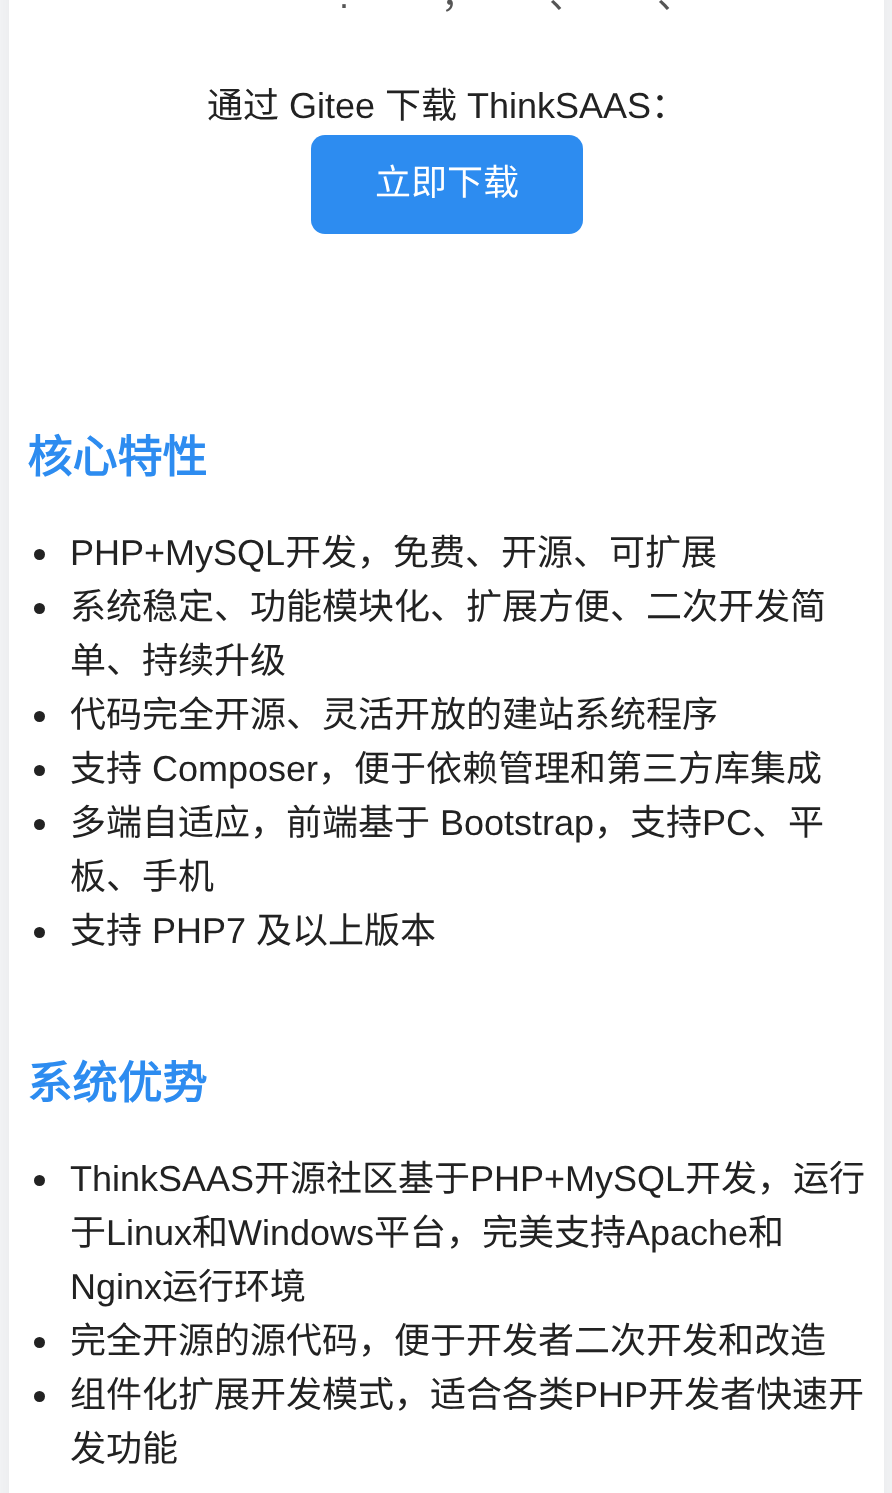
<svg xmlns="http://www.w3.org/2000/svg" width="892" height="1493">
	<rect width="100%" height="100%" fill="#F7F8FA" />
	<rect x="9" y="-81" width="875" height="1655" rx="27" fill="#000000" fill-opacity="0.08" filter="blur(18px)" />
	<rect x="9" y="0" width="875" height="1493" fill="#FFFFFF" />
	<text x="339" y="8" font-family="Liberation Sans" font-size="36" fill="#555555">.</text>
	<g font-family="Noto Sans CJK SC" font-size="36" fill="#555555">
		<text x="441" y="8">，</text>
		<text x="549" y="8">、</text>
		<text x="657" y="8">、</text>
	</g>
	<text x="207" y="118" font-family="Noto Sans CJK SC" font-size="36" fill="#222222">通过</text>
	<text x="289" y="118" font-family="Liberation Sans" font-size="36" fill="#222222">Gitee</text>
	<text x="385" y="118" font-family="Noto Sans CJK SC" font-size="36" fill="#222222">下载</text>
	<text x="467" y="118" font-family="Liberation Sans" font-size="36" fill="#222222">ThinkSAAS</text>
	<text x="651" y="118" font-family="Noto Sans CJK SC" font-size="36" fill="#222222">：</text>
	<rect x="311" y="135" width="272" height="99" rx="14" fill="#2D8CF0" />
	<text x="375" y="195" font-family="Noto Sans CJK SC" font-size="36" fill="#FFFFFF">立即下载</text>
	<text x="27" y="473" font-family="Noto Sans CJK SC" font-size="45" font-weight="700" fill="#2D8CF0">核心特性</text>
	<circle cx="39.5" cy="554.5" r="5.5" fill="#222222" />
	<text x="70" y="565" font-family="Liberation Sans" font-size="36" fill="#222222">PHP+MySQL</text>
	<text x="285" y="565" font-family="Noto Sans CJK SC" font-size="36" fill="#222222">开发，免费、开源、可扩展</text>
	<circle cx="39.5" cy="608.5" r="5.5" fill="#222222" />
	<g font-family="Noto Sans CJK SC" font-size="36" fill="#222222">
		<text x="70" y="619">系统稳定、功能模块化、扩展方便、二次开发简</text>
		<text x="70" y="673">单、持续升级</text>
	</g>
	<circle cx="39.5" cy="716.5" r="5.5" fill="#222222" />
	<text x="70" y="727" font-family="Noto Sans CJK SC" font-size="36" fill="#222222">代码完全开源、灵活开放的建站系统程序</text>
	<circle cx="39.5" cy="770.5" r="5.5" fill="#222222" />
	<text x="70" y="781" font-family="Noto Sans CJK SC" font-size="36" fill="#222222">支持</text>
	<text x="152" y="781" font-family="Liberation Sans" font-size="36" fill="#222222">Composer</text>
	<text x="318" y="781" font-family="Noto Sans CJK SC" font-size="36" fill="#222222">，便于依赖管理和第三方库集成</text>
	<circle cx="39.5" cy="824.5" r="5.5" fill="#222222" />
	<text x="70" y="835" font-family="Noto Sans CJK SC" font-size="36" fill="#222222">多端自适应，前端基于</text>
	<text x="440" y="835" font-family="Liberation Sans" font-size="36" fill="#222222">Bootstrap</text>
	<text x="594" y="835" font-family="Noto Sans CJK SC" font-size="36" fill="#222222">，支持</text>
	<text x="702" y="835" font-family="Liberation Sans" font-size="36" fill="#222222">PC</text>
	<g font-family="Noto Sans CJK SC" font-size="36" fill="#222222">
		<text x="752" y="835">、平</text>
		<text x="70" y="889">板、手机</text>
	</g>
	<circle cx="39.5" cy="932.5" r="5.5" fill="#222222" />
	<text x="70" y="943" font-family="Noto Sans CJK SC" font-size="36" fill="#222222">支持</text>
	<text x="152" y="943" font-family="Liberation Sans" font-size="36" fill="#222222">PHP7</text>
	<text x="256" y="943" font-family="Noto Sans CJK SC" font-size="36" fill="#222222">及以上版本</text>
	<text x="27" y="1099" font-family="Noto Sans CJK SC" font-size="45" font-weight="700" fill="#2D8CF0">系统优势</text>
	<circle cx="39.5" cy="1180.5" r="5.5" fill="#222222" />
	<text x="70" y="1191" font-family="Liberation Sans" font-size="36" fill="#222222">ThinkSAAS</text>
	<text x="254" y="1191" font-family="Noto Sans CJK SC" font-size="36" fill="#222222">开源社区基于</text>
	<text x="470" y="1191" font-family="Liberation Sans" font-size="36" fill="#222222">PHP+MySQL</text>
	<g font-family="Noto Sans CJK SC" font-size="36" fill="#222222">
		<text x="685" y="1191">开发，运行</text>
		<text x="70" y="1245">于</text>
	</g>
	<text x="106" y="1245" font-family="Liberation Sans" font-size="36" fill="#222222">Linux</text>
	<text x="192" y="1245" font-family="Noto Sans CJK SC" font-size="36" fill="#222222">和</text>
	<text x="228" y="1245" font-family="Liberation Sans" font-size="36" fill="#222222">Windows</text>
	<text x="374" y="1245" font-family="Noto Sans CJK SC" font-size="36" fill="#222222">平台，完美支持</text>
	<text x="626" y="1245" font-family="Liberation Sans" font-size="36" fill="#222222">Apache</text>
	<text x="748" y="1245" font-family="Noto Sans CJK SC" font-size="36" fill="#222222">和</text>
	<text x="70" y="1299" font-family="Liberation Sans" font-size="36" fill="#222222">Nginx</text>
	<text x="162" y="1299" font-family="Noto Sans CJK SC" font-size="36" fill="#222222">运行环境</text>
	<circle cx="39.5" cy="1342.5" r="5.5" fill="#222222" />
	<text x="70" y="1353" font-family="Noto Sans CJK SC" font-size="36" fill="#222222">完全开源的源代码，便于开发者二次开发和改造</text>
	<circle cx="39.5" cy="1396.5" r="5.5" fill="#222222" />
	<text x="70" y="1407" font-family="Noto Sans CJK SC" font-size="36" fill="#222222">组件化扩展开发模式，适合各类</text>
	<text x="574" y="1407" font-family="Liberation Sans" font-size="36" fill="#222222">PHP</text>
	<g font-family="Noto Sans CJK SC" font-size="36" fill="#222222">
		<text x="648" y="1407">开发者快速开</text>
		<text x="70" y="1461">发功能</text>
	</g>
</svg>
